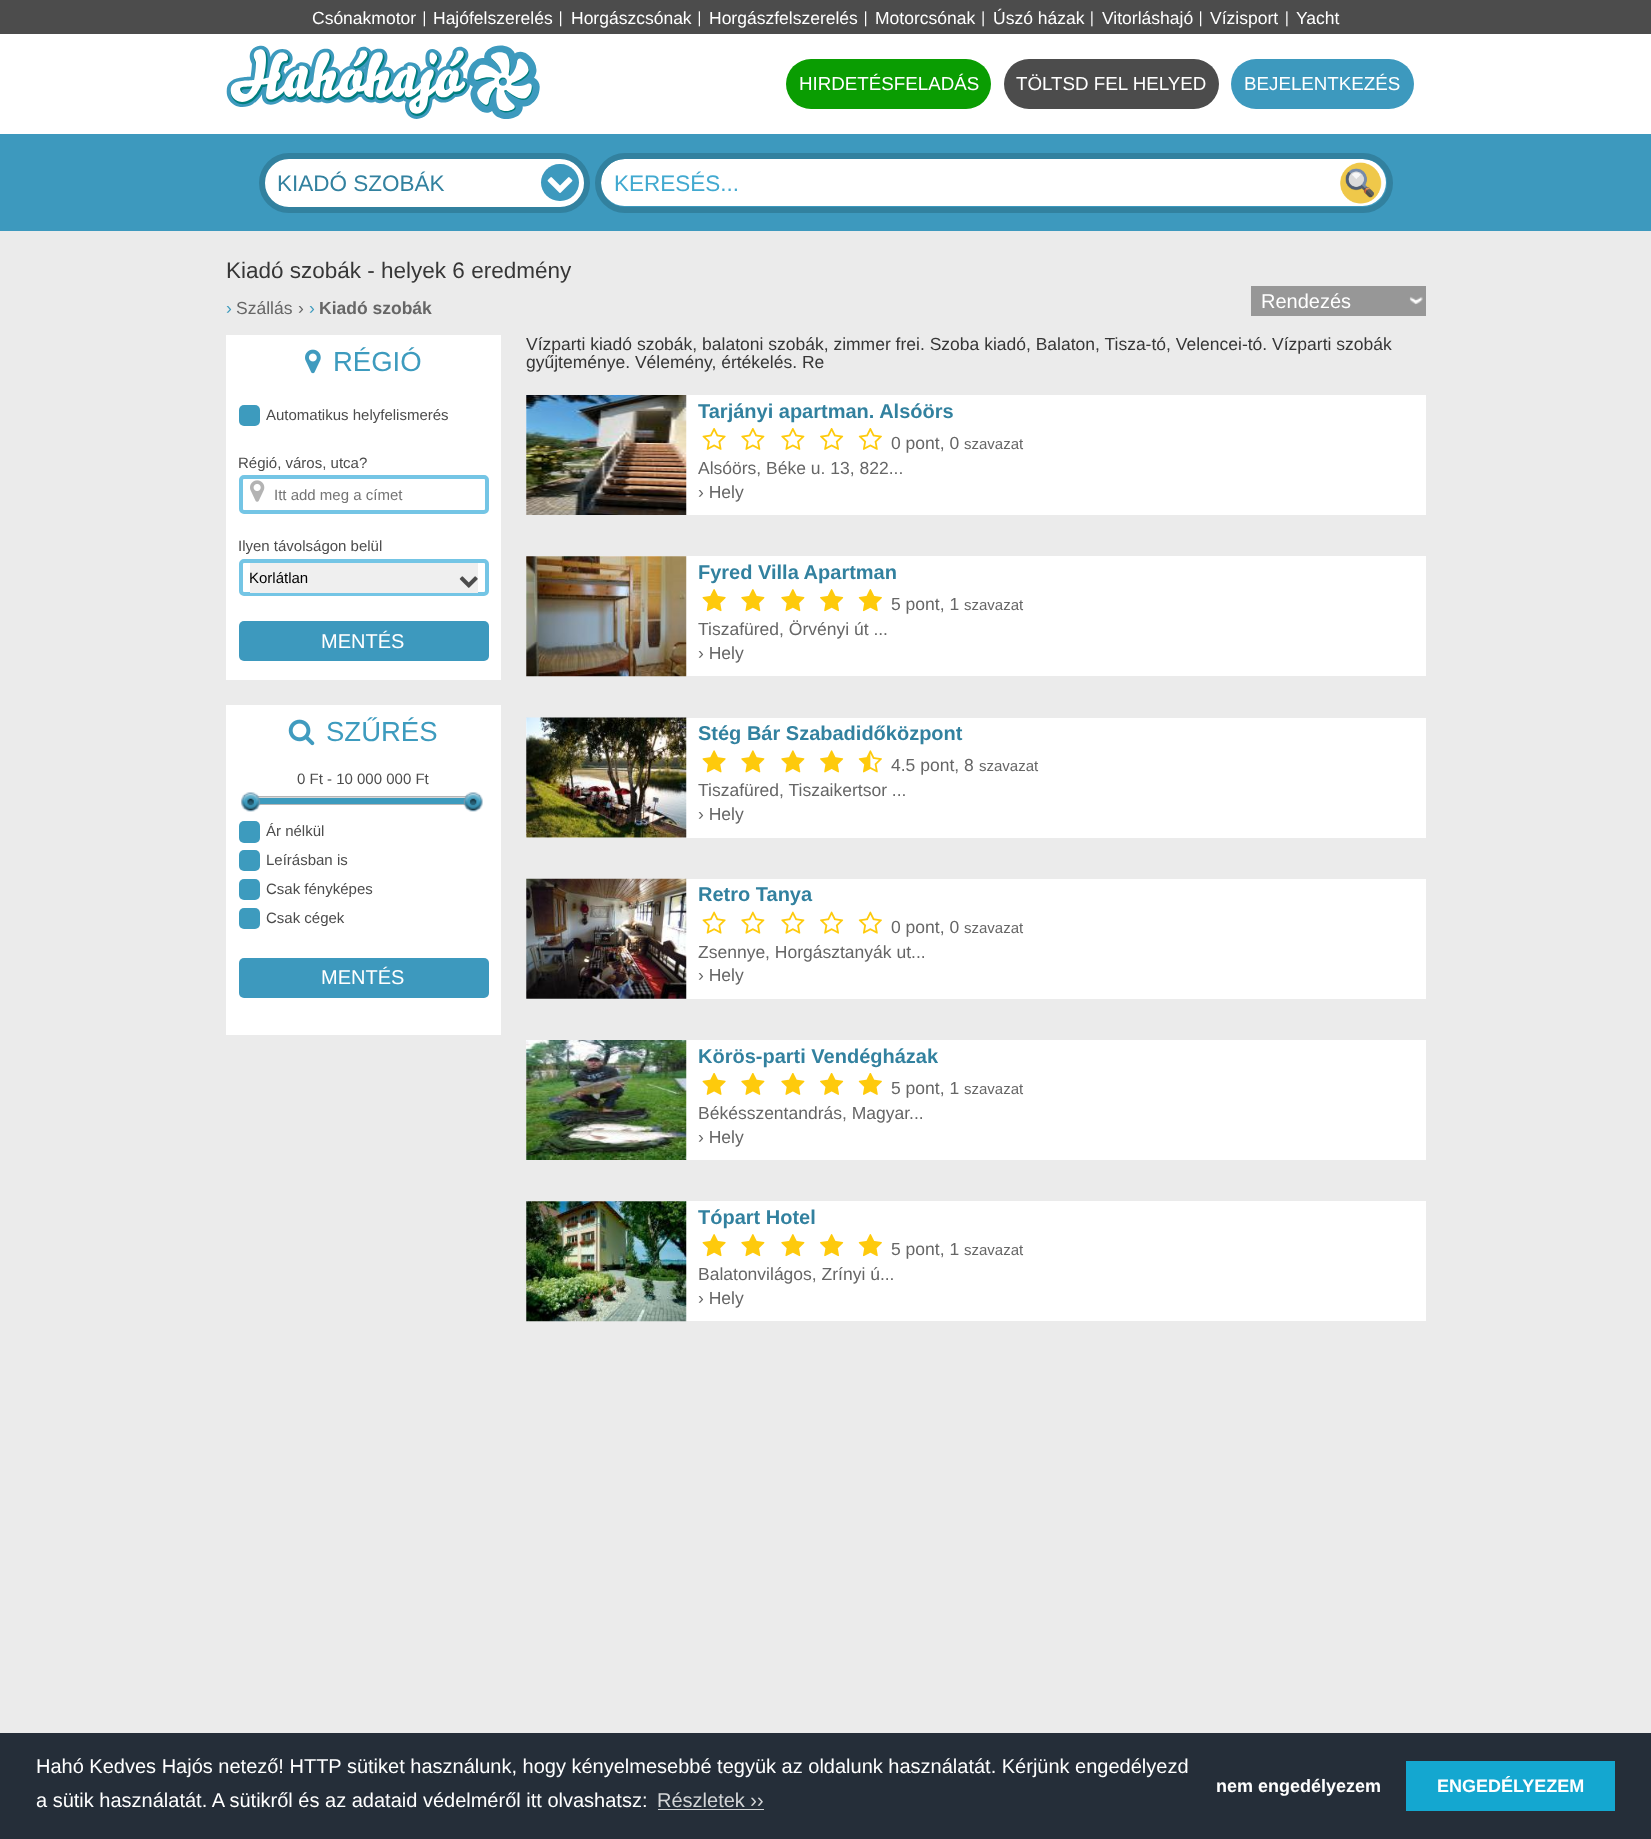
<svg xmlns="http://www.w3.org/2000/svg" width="1651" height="1839">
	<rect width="100%" height="100%" fill="#EBEBEB" />
	<rect x="0" y="0" width="1651" height="34" fill="#4C4C4C" />
	<image x="423" y="11" width="2" height="16" href="assets/img1.png" />
	<text x="312" y="24" font-family="Liberation Sans" font-size="17.5" fill="#FFFFFF">Csónakmotor</text>
	<image x="560" y="11" width="2" height="16" href="assets/img2.png" />
	<text x="433" y="24" font-family="Liberation Sans" font-size="17.5" fill="#FFFFFF">Hajófelszerelés</text>
	<image x="698" y="11" width="2" height="16" href="assets/img1.png" />
	<text x="571" y="24" font-family="Liberation Sans" font-size="17.5" fill="#FFFFFF">Horgászcsónak</text>
	<image x="865" y="11" width="2" height="16" href="assets/img2.png" />
	<text x="709" y="24" font-family="Liberation Sans" font-size="17.5" fill="#FFFFFF">Horgászfelszerelés</text>
	<image x="982" y="11" width="2" height="16" href="assets/img3.png" />
	<text x="875" y="24" font-family="Liberation Sans" font-size="17.5" fill="#FFFFFF">Motorcsónak</text>
	<image x="1091" y="11" width="2" height="16" href="assets/img4.png" />
	<text x="993" y="24" font-family="Liberation Sans" font-size="17.5" fill="#FFFFFF">Úszó házak</text>
	<image x="1200" y="11" width="2" height="16" href="assets/img2.png" />
	<text x="1102" y="24" font-family="Liberation Sans" font-size="17.5" fill="#FFFFFF">Vitorláshajó</text>
	<image x="1286" y="11" width="2" height="16" href="assets/img4.png" />
	<g font-family="Liberation Sans" font-size="17.5" fill="#FFFFFF">
		<text x="1210" y="24">Vízisport</text>
		<text x="1296" y="24">Yacht</text>
	</g>
	<rect x="0" y="34" width="1651" height="100" fill="#FFFFFF" />
	<image x="226" y="45" width="314" height="74" href="assets/img5.png" />
	<rect x="786" y="59" width="205" height="50" rx="25" fill="#0A9D02" />
	<text x="799" y="90" font-family="Liberation Sans" font-size="18.75" fill="#FFFFFF">HIRDETÉSFELADÁS</text>
	<rect x="1004" y="59" width="215" height="50" rx="25" fill="#4C4C4C" />
	<text x="1016" y="90" font-family="Liberation Sans" font-size="18.75" fill="#FFFFFF">TÖLTSD FEL HELYED</text>
	<rect x="1231" y="59" width="183" height="50" rx="25" fill="#3D99BE" />
	<text x="1244" y="90" font-family="Liberation Sans" font-size="18.75" fill="#FFFFFF">BEJELENTKEZÉS</text>
	<rect x="0" y="134" width="1651" height="97" fill="#3D99BE" />
	<rect x="262" y="156" width="325" height="54" rx="27" fill="#FFFFFF" stroke="#32819F" stroke-width="6" />
	<text x="277" y="191" font-family="Liberation Sans" font-size="22.5" fill="#32819F">KIADÓ SZOBÁK</text>
	<rect x="541" y="164" width="38" height="37" rx="18.5" fill="#3D99BE" />
	<image x="547" y="177" width="26" height="16" href="assets/img6.png" />
	<rect x="601" y="159" width="785" height="47" rx="23.5" fill="#FFFFFF" />
	<rect x="598" y="156" width="792" height="54" rx="27" fill="none" stroke="#32819F" stroke-width="6" />
	<text x="614" y="191" font-family="Liberation Sans" font-size="22.5" fill="#41A9D0">KERESÉS...</text>
	<image x="1340" y="162" width="42" height="42" href="assets/img7.png" />
	<text x="226" y="278" font-family="Liberation Sans" font-size="22.5" fill="#363636">Kiadó szobák - helyek 6 eredmény</text>
	<text x="226" y="314" font-family="Liberation Sans" font-size="17.5" fill="#3D9BBE">›</text>
	<g font-family="Liberation Sans" font-size="17.5" fill="#666666">
		<text x="236" y="314">Szállás</text>
		<text x="298" y="314">›</text>
	</g>
	<text x="309" y="314" font-family="Liberation Sans" font-size="17.5" fill="#3D9BBE">›</text>
	<text x="319" y="314" font-family="Liberation Sans" font-size="17.5" font-weight="700" fill="#666666">Kiadó szobák</text>
	<rect x="1251" y="286" width="175" height="30" fill="#979797" />
	<image x="1409" y="296" width="14" height="9" href="assets/img8.png" />
	<text x="1261" y="308" font-family="Liberation Sans" font-size="20" fill="#FFFFFF">Rendezés</text>
	<rect x="226" y="335" width="275" height="345" fill="#FFFFFF" />
	<image x="305" y="349" width="16" height="25" href="assets/img9.png" />
	<text x="333" y="371" font-family="Liberation Sans" font-size="27.5" fill="#3D9BBE">RÉGIÓ</text>
	<rect x="239" y="405" width="21" height="21" rx="5" fill="#3D9BBE" />
	<g font-family="Liberation Sans" font-size="15" fill="#4C4C4C">
		<text x="266" y="420">Automatikus helyfelismerés</text>
		<text x="238" y="468">Régió, város, utca?</text>
	</g>
	<rect x="241" y="477" width="246" height="35" rx="3" fill="none" stroke="#74C5E5" stroke-width="4" />
	<image x="250" y="480" width="15" height="22" href="assets/img10.png" />
	<text x="274" y="500" font-family="Liberation Sans" font-size="15" fill="#757575">Itt add meg a címet</text>
	<text x="238" y="551" font-family="Liberation Sans" font-size="15" fill="#4C4C4C">Ilyen távolságon belül</text>
	<rect x="241" y="561" width="246" height="33" rx="3" fill="none" stroke="#74C5E5" stroke-width="4" />
	<rect x="250" y="563" width="228" height="30" fill="#EFEFEF" />
	<text x="249" y="583" font-family="Liberation Sans" font-size="15" fill="#000000">Korlátlan</text>
	<image x="459" y="576" width="19" height="12" href="assets/img11.png" />
	<rect x="239" y="621" width="250" height="40" rx="5" fill="#3D99BE" />
	<text x="321" y="648" font-family="Liberation Sans" font-size="20" fill="#FFFFFF">MENTÉS</text>
	<rect x="226" y="705" width="275" height="330" fill="#FFFFFF" />
	<image x="288" y="719" width="27" height="27" href="assets/img12.png" />
	<text x="326" y="741" font-family="Liberation Sans" font-size="27.5" fill="#3D9BBE">SZŰRÉS</text>
	<text x="297" y="784" font-family="Liberation Sans" font-size="15" fill="#4C4C4C">0 Ft - 10 000 000 Ft</text>
	<rect x="257" y="797" width="210" height="1" fill="#D7D7D7" />
	<rect x="251.5" y="796.5" width="224" height="8" fill="none" stroke="#B6B6B6" />
	<rect x="253" y="798" width="213" height="6" fill="#3D9BBE" />
	<image x="241" y="792" width="20" height="20" href="assets/img13.png" />
	<image x="463" y="792" width="20" height="20" href="assets/img14.png" />
	<rect x="239" y="821" width="21" height="22" rx="5" fill="#3D9BBE" />
	<text x="266" y="836" font-family="Liberation Sans" font-size="15" fill="#4C4C4C">Ár nélkül</text>
	<rect x="239" y="850" width="21" height="21" rx="5" fill="#3D9BBE" />
	<text x="266" y="865" font-family="Liberation Sans" font-size="15" fill="#4C4C4C">Leírásban is</text>
	<rect x="239" y="879" width="21" height="21" rx="5" fill="#3D9BBE" />
	<text x="266" y="894" font-family="Liberation Sans" font-size="15" fill="#4C4C4C">Csak fényképes</text>
	<rect x="239" y="908" width="21" height="21" rx="5" fill="#3D9BBE" />
	<text x="266" y="923" font-family="Liberation Sans" font-size="15" fill="#4C4C4C">Csak cégek</text>
	<rect x="239" y="958" width="250" height="40" rx="5" fill="#3D99BE" />
	<text x="321" y="984" font-family="Liberation Sans" font-size="20" fill="#FFFFFF">MENTÉS</text>
	<g font-family="Liberation Sans" font-size="17.5" fill="#363636">
		<text x="526" y="350">Vízparti kiadó szobák, balatoni szobák, zimmer frei. Szoba kiadó, Balaton, Tisza-tó, Velencei-tó. Vízparti szobák</text>
		<text x="526" y="368">gyűjteménye. Vélemény, értékelés. Re</text>
	</g>
	<rect x="526" y="395" width="900" height="120" fill="#FFFFFF" />
	<image x="526" y="395" width="161" height="120" href="assets/img15.png" />
	<text x="698" y="418" font-family="Liberation Sans" font-size="20" font-weight="700" fill="#32819F">Tarjányi apartman. Alsóörs</text>
	<image x="702" y="428" width="24" height="22" href="assets/img16.png" />
	<image x="741" y="428" width="24" height="22" href="assets/img17.png" />
	<image x="781" y="428" width="24" height="22" href="assets/img17.png" />
	<image x="820" y="428" width="24" height="22" href="assets/img18.png" />
	<image x="858" y="428" width="24" height="22" href="assets/img19.png" />
	<text x="891" y="449" font-family="Liberation Sans" font-size="17.5" fill="#666666">0 pont, 0</text>
	<text x="964" y="449" font-family="Liberation Sans" font-size="15" fill="#666666">szavazat</text>
	<g font-family="Liberation Sans" font-size="17.5" fill="#666666">
		<text x="698" y="474">Alsóörs, Béke u. 13, 822...</text>
		<text x="698" y="498">› Hely</text>
	</g>
	<rect x="526" y="556" width="900" height="120" fill="#FFFFFF" />
	<image x="526" y="556" width="161" height="121" href="assets/img20.png" />
	<text x="698" y="579" font-family="Liberation Sans" font-size="20" font-weight="700" fill="#32819F">Fyred Villa Apartman</text>
	<image x="702" y="589" width="24" height="23" href="assets/img21.png" />
	<image x="741" y="589" width="24" height="23" href="assets/img22.png" />
	<image x="781" y="589" width="24" height="23" href="assets/img22.png" />
	<image x="820" y="589" width="24" height="23" href="assets/img23.png" />
	<image x="858" y="589" width="24" height="23" href="assets/img24.png" />
	<text x="891" y="610" font-family="Liberation Sans" font-size="17.5" fill="#666666">5 pont, 1</text>
	<text x="964" y="610" font-family="Liberation Sans" font-size="15" fill="#666666">szavazat</text>
	<g font-family="Liberation Sans" font-size="17.5" fill="#666666">
		<text x="698" y="635">Tiszafüred, Örvényi út ...</text>
		<text x="698" y="659">› Hely</text>
	</g>
	<rect x="526" y="718" width="900" height="120" fill="#FFFFFF" />
	<image x="526" y="717" width="161" height="121" href="assets/img25.png" />
	<text x="698" y="740" font-family="Liberation Sans" font-size="20" font-weight="700" fill="#32819F">Stég Bár Szabadidőközpont</text>
	<image x="702" y="750" width="24" height="23" href="assets/img26.png" />
	<image x="741" y="750" width="24" height="23" href="assets/img27.png" />
	<image x="781" y="750" width="24" height="23" href="assets/img27.png" />
	<image x="820" y="750" width="24" height="23" href="assets/img28.png" />
	<image x="858" y="750" width="24" height="23" href="assets/img29.png" />
	<text x="891" y="771" font-family="Liberation Sans" font-size="17.5" fill="#666666">4.5 pont, 8</text>
	<text x="979" y="771" font-family="Liberation Sans" font-size="15" fill="#666666">szavazat</text>
	<g font-family="Liberation Sans" font-size="17.5" fill="#666666">
		<text x="698" y="796">Tiszafüred, Tiszaikertsor ...</text>
		<text x="698" y="820">› Hely</text>
	</g>
	<rect x="526" y="879" width="900" height="120" fill="#FFFFFF" />
	<image x="526" y="878" width="161" height="121" href="assets/img30.png" />
	<text x="698" y="901" font-family="Liberation Sans" font-size="20" font-weight="700" fill="#32819F">Retro Tanya</text>
	<image x="702" y="911" width="24" height="23" href="assets/img31.png" />
	<image x="741" y="911" width="24" height="23" href="assets/img32.png" />
	<image x="781" y="911" width="24" height="23" href="assets/img32.png" />
	<image x="820" y="911" width="24" height="23" href="assets/img33.png" />
	<image x="858" y="911" width="24" height="23" href="assets/img34.png" />
	<text x="891" y="933" font-family="Liberation Sans" font-size="17.5" fill="#666666">0 pont, 0</text>
	<text x="964" y="933" font-family="Liberation Sans" font-size="15" fill="#666666">szavazat</text>
	<g font-family="Liberation Sans" font-size="17.5" fill="#666666">
		<text x="698" y="958">Zsennye, Horgásztanyák ut...</text>
		<text x="698" y="981">› Hely</text>
	</g>
	<rect x="526" y="1040" width="900" height="120" fill="#FFFFFF" />
	<image x="526" y="1040" width="161" height="120" href="assets/img35.png" />
	<text x="698" y="1063" font-family="Liberation Sans" font-size="20" font-weight="700" fill="#32819F">Körös-parti Vendégházak</text>
	<image x="702" y="1073" width="24" height="22" href="assets/img36.png" />
	<image x="741" y="1073" width="24" height="22" href="assets/img37.png" />
	<image x="781" y="1073" width="24" height="22" href="assets/img37.png" />
	<image x="820" y="1073" width="24" height="22" href="assets/img38.png" />
	<image x="858" y="1073" width="24" height="22" href="assets/img39.png" />
	<text x="891" y="1094" font-family="Liberation Sans" font-size="17.5" fill="#666666">5 pont, 1</text>
	<text x="964" y="1094" font-family="Liberation Sans" font-size="15" fill="#666666">szavazat</text>
	<g font-family="Liberation Sans" font-size="17.5" fill="#666666">
		<text x="698" y="1119">Békésszentandrás, Magyar...</text>
		<text x="698" y="1143">› Hely</text>
	</g>
	<rect x="526" y="1201" width="900" height="120" fill="#FFFFFF" />
	<image x="526" y="1201" width="161" height="121" href="assets/img40.png" />
	<text x="698" y="1224" font-family="Liberation Sans" font-size="20" font-weight="700" fill="#32819F">Tópart Hotel</text>
	<image x="702" y="1234" width="24" height="23" href="assets/img21.png" />
	<image x="741" y="1234" width="24" height="23" href="assets/img22.png" />
	<image x="781" y="1234" width="24" height="23" href="assets/img22.png" />
	<image x="820" y="1234" width="24" height="23" href="assets/img23.png" />
	<image x="858" y="1234" width="24" height="23" href="assets/img24.png" />
	<text x="891" y="1255" font-family="Liberation Sans" font-size="17.5" fill="#666666">5 pont, 1</text>
	<text x="964" y="1255" font-family="Liberation Sans" font-size="15" fill="#666666">szavazat</text>
	<g font-family="Liberation Sans" font-size="17.5" fill="#666666">
		<text x="698" y="1280">Balatonvilágos, Zrínyi ú...</text>
		<text x="698" y="1304">› Hely</text>
	</g>
	<rect x="0" y="1733" width="1651" height="106" fill="#252E39" />
	<g font-family="Liberation Sans" font-size="20" fill="#FFFFFF">
		<text x="36" y="1773">Hahó Kedves Hajós netező! HTTP sütiket használunk, hogy kényelmesebbé tegyük az oldalunk használatát. Kérjünk engedélyezd</text>
		<text x="36" y="1807">a sütik használatát. A sütikről és az adataid védelméről itt olvashatsz:</text>
	</g>
	<text x="657" y="1807" font-family="Liberation Sans" font-size="20" fill="#D3D5D7">Részletek ››</text>
	<rect x="658" y="1809" width="106" height="1" fill="#D3D5D7" />
	<text x="1216" y="1792" font-family="Liberation Sans" font-size="18" font-weight="700" fill="#FFFFFF">nem engedélyezem</text>
	<rect x="1406" y="1761" width="209" height="50" fill="#14A7D0" />
	<text x="1437" y="1792" font-family="Liberation Sans" font-size="18" font-weight="700" fill="#FFFFFF">ENGEDÉLYEZEM</text>
</svg>
